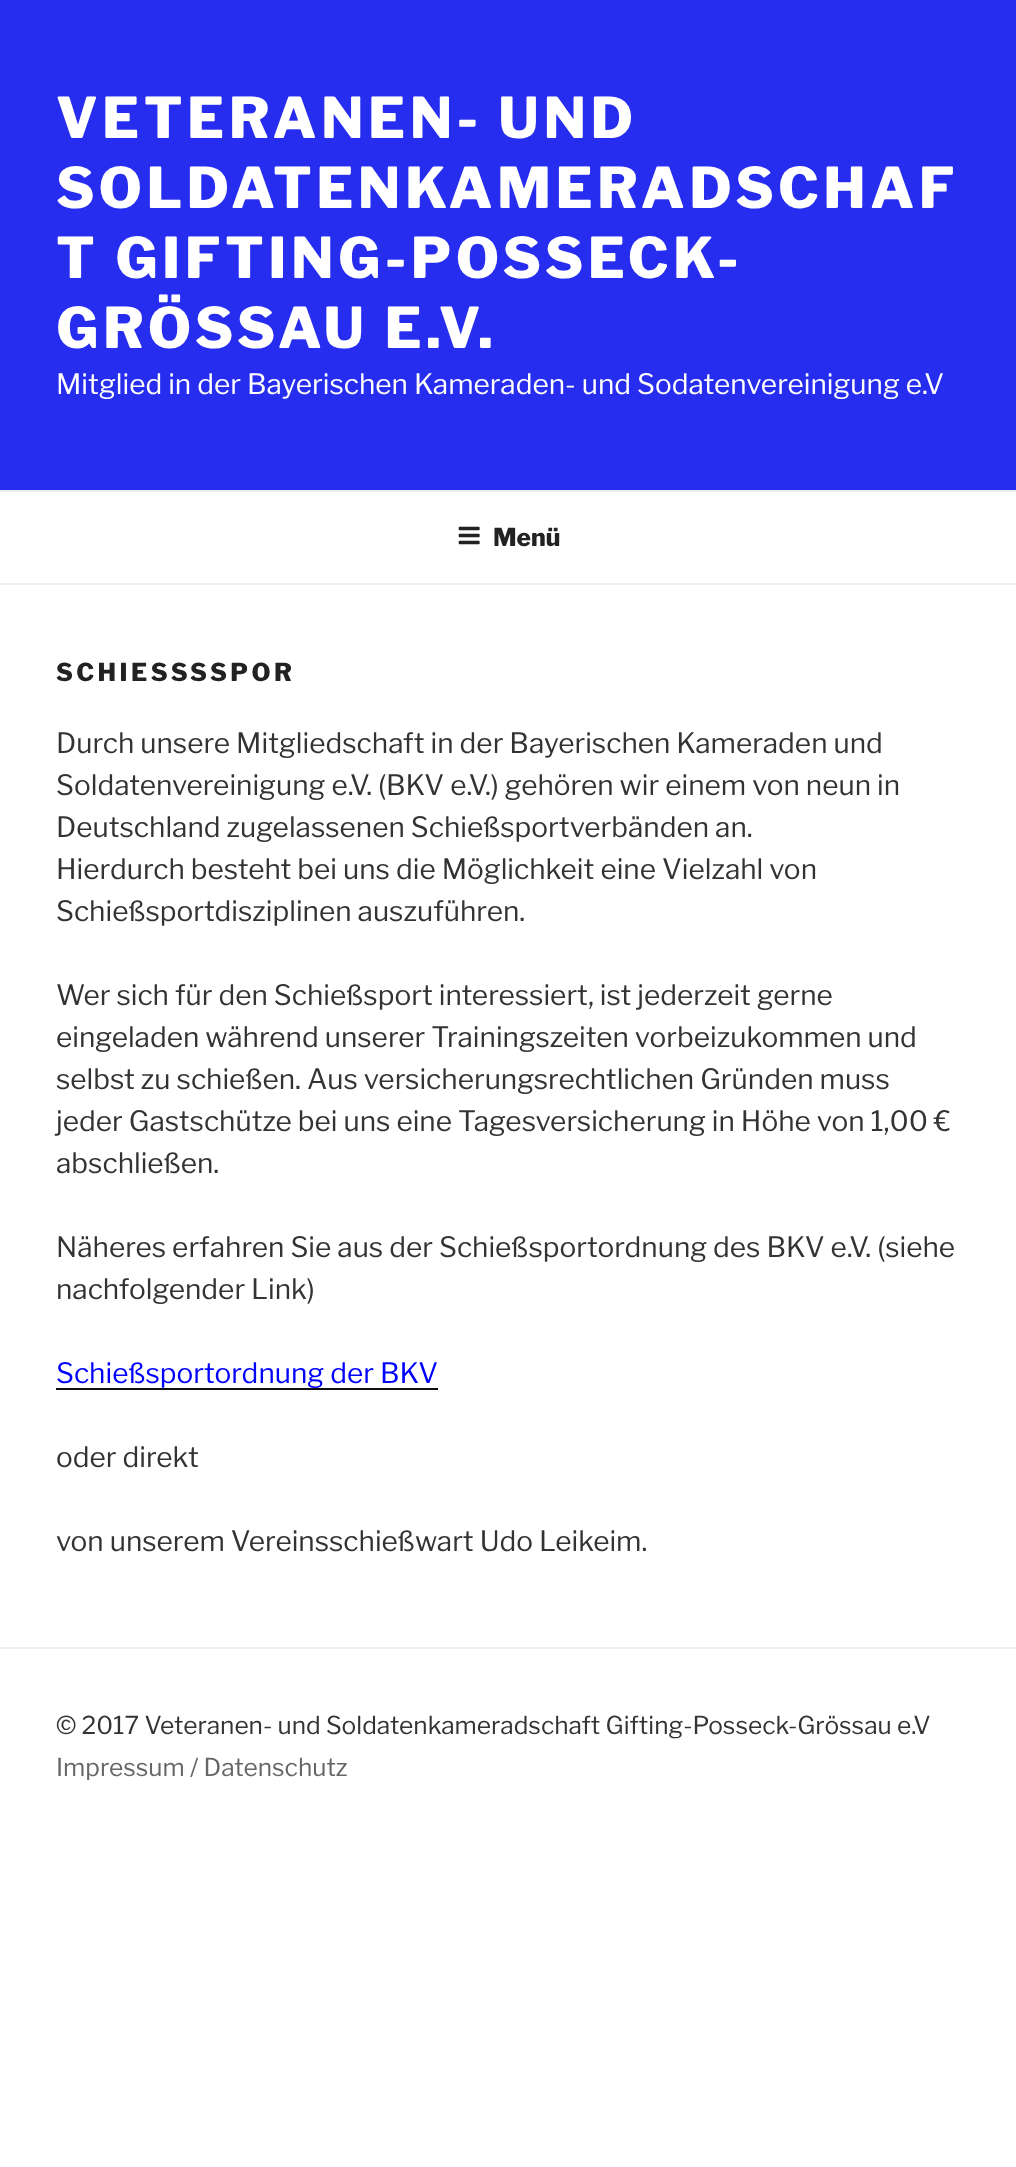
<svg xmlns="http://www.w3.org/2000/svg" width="1016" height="2167">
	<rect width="100%" height="100%" fill="#FFFFFF" />
	<rect x="0" y="0" width="1016" height="490" fill="#262DEF" />
	<g font-family="Libre Franklin" font-size="56" font-weight="100" letter-spacing="4.5" fill="#FFFFFF">
		<text x="56" y="138">VETERANEN- UND</text>
		<text x="56" y="208">SOLDATENKAMERADSCHAF</text>
		<text x="56" y="278">T GIFTING-POSSECK-</text>
		<text x="56" y="348">GRÖSSAU E.V.</text>
	</g>
	<text x="56" y="394" font-family="'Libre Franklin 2'" font-size="28" font-weight="100" fill="#FFFFFF">Mitglied in der Bayerischen Kameraden- und Sodatenvereinigung e.V</text>
	<rect x="0" y="490" width="1016" height="2" fill="#EEEEEE" />
	<rect x="0" y="583" width="1016" height="2" fill="#EEEEEE" />
	<image x="458" y="526" width="22" height="19" href="assets/img1.png" />
	<text x="493" y="546" font-family="Libre Franklin" font-size="24.5" font-weight="100" fill="#222222">Menü</text>
	<g font-family="Libre Franklin" font-size="24.5" font-weight="100" letter-spacing="3.5" fill="#222222">
		<text x="56" y="681">SCHIESS</text>
		<text x="190" y="681">SSPOR</text>
	</g>
	<g font-family="'Libre Franklin 2'" font-size="28" font-weight="100" fill="#333333">
		<text x="56" y="753">Durch unsere Mitgliedschaft in der Bayerischen Kameraden und</text>
		<text x="56" y="795">Soldatenvereinigung e.V. (BKV e.V.) gehören wir einem von neun in</text>
		<text x="56" y="837">Deutschland zugelassenen Schießsportverbänden an.</text>
		<text x="56" y="879">Hierdurch besteht bei uns die Möglichkeit eine Vielzahl von</text>
		<text x="56" y="921">Schießsportdisziplinen auszuführen.</text>
		<text x="56" y="1005">Wer sich für den Schießsport interessiert, ist jederzeit gerne</text>
		<text x="56" y="1047">eingeladen während unserer Trainingszeiten vorbeizukommen und</text>
		<text x="56" y="1089">selbst zu schießen. Aus versicherungsrechtlichen Gründen muss</text>
		<text x="56" y="1131">jeder Gastschütze bei uns eine Tagesversicherung in Höhe von 1,00 €</text>
		<text x="56" y="1173">abschließen.</text>
		<text x="56" y="1257">Näheres erfahren Sie aus der Schießsportordnung des BKV e.V. (siehe</text>
		<text x="56" y="1299">nachfolgender Link)</text>
	</g>
	<text x="56" y="1383" font-family="'Libre Franklin 2'" font-size="28" font-weight="100" fill="#0000FF">Schießsportordnung der BKV</text>
	<rect x="56" y="1388" width="382" height="2" fill="#0F0F0F" />
	<g font-family="'Libre Franklin 2'" font-size="28" font-weight="100" fill="#333333">
		<text x="56" y="1467">oder direkt</text>
		<text x="56" y="1551">von unserem Vereinsschießwart Udo Leikeim.</text>
	</g>
	<rect x="0" y="1647" width="1016" height="2" fill="#EEEEEE" />
	<text x="56" y="1734" font-family="'Libre Franklin 2'" font-size="24.5" font-weight="100" fill="#333333">© 2017 Veteranen- und Soldatenkameradschaft Gifting-Posseck-Grössau e.V</text>
	<text x="56" y="1776" font-family="'Libre Franklin 2'" font-size="24.5" font-weight="100" fill="#666666">Impressum / Datenschutz</text>
</svg>
